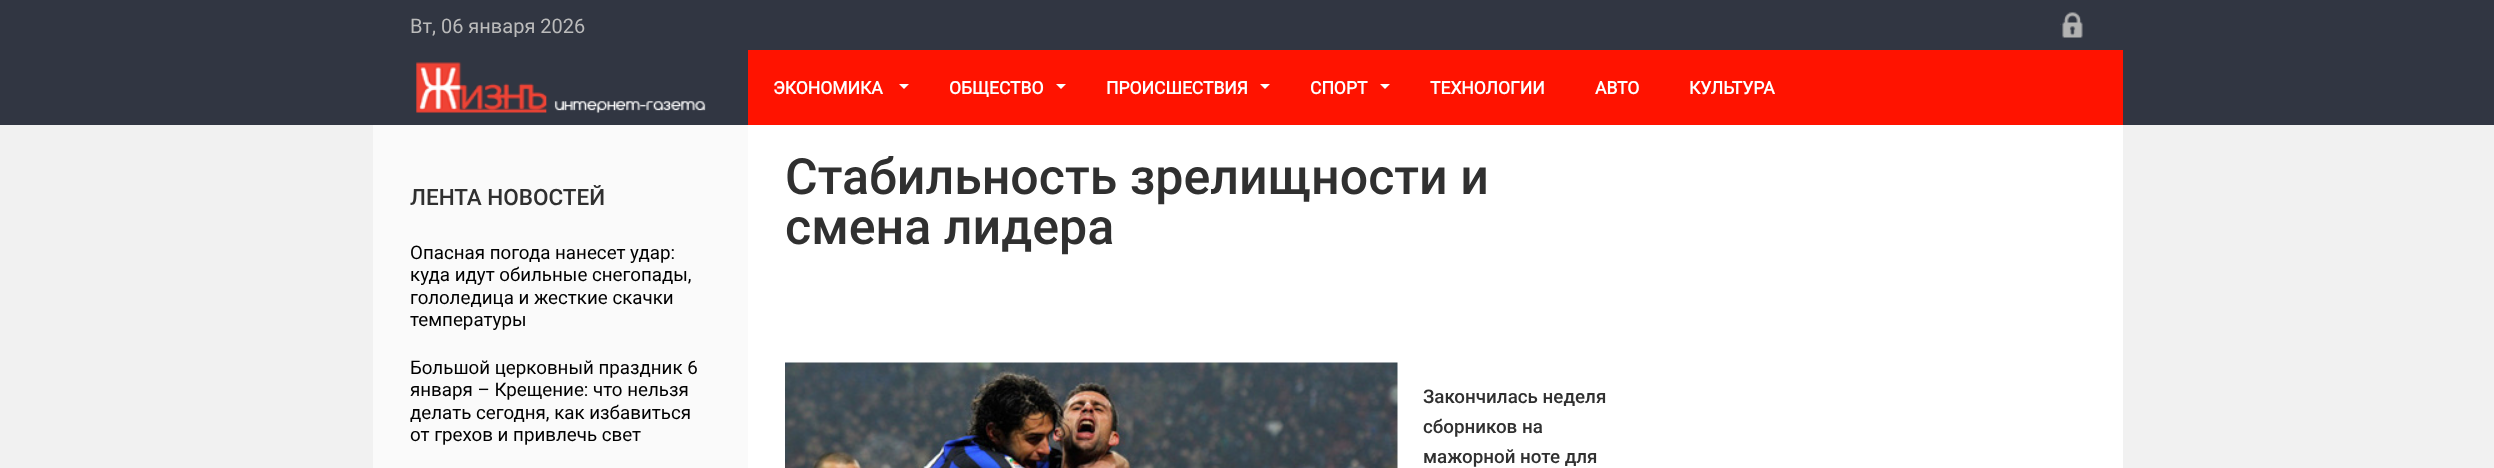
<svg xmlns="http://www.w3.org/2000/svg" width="2494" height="468">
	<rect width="100%" height="100%" fill="#F1F1F1" />
	<rect x="0" y="0" width="2494" height="125" fill="#313642" />
	<text x="410" y="33" font-family="Roboto" font-size="20" fill="#BBBBBB">Вт, 06 января 2026</text>
	<image x="2060" y="12" width="23" height="26" href="assets/img1.png" />
	<rect x="748" y="50" width="1375" height="75" fill="#FF1300" />
	<image x="416" y="62" width="290" height="51" href="assets/img2.png" />
	<text x="773" y="94" font-family="Roboto" font-size="17.5" font-weight="700" fill="#FFFFFF">ЭКОНОМИКА</text>
	<path d="M899 84H909L904 89Z" fill="#FFFFFF" />
	<text x="949" y="94" font-family="Roboto" font-size="17.5" font-weight="700" fill="#FFFFFF">ОБЩЕСТВО</text>
	<path d="M1056 84H1066L1061 89Z" fill="#FFFFFF" />
	<text x="1106" y="94" font-family="Roboto" font-size="17.5" font-weight="700" fill="#FFFFFF">ПРОИСШЕСТВИЯ</text>
	<path d="M1260 84H1270L1265 89Z" fill="#FFFFFF" />
	<text x="1310" y="94" font-family="Roboto" font-size="17.5" font-weight="700" fill="#FFFFFF">СПОРТ</text>
	<path d="M1380 84H1390L1385 89Z" fill="#FFFFFF" />
	<g font-family="Roboto" font-size="17.5" font-weight="700" fill="#FFFFFF">
		<text x="1430" y="94">ТЕХНОЛОГИИ</text>
		<text x="1595" y="94">АВТО</text>
		<text x="1689" y="94">КУЛЬТУРА</text>
	</g>
	<rect x="748" y="125" width="1375" height="343" fill="#FFFFFF" />
	<rect x="373" y="125" width="375" height="343" fill="#FAFAFA" />
	<text x="410" y="205" font-family="Roboto" font-size="22.5" font-weight="500" fill="#303030">ЛЕНТА НОВОСТЕЙ</text>
	<g font-family="Roboto" font-size="18.75" fill="#000000">
		<text x="410" y="259">Опасная погода нанесет удар:</text>
		<text x="410" y="281">куда идут обильные снегопады,</text>
		<text x="410" y="304">гололедица и жесткие скачки</text>
		<text x="410" y="326">температуры</text>
		<text x="410" y="374">Большой церковный праздник 6</text>
		<text x="410" y="396">января – Крещение: что нельзя</text>
		<text x="410" y="419">делать сегодня, как избавиться</text>
		<text x="410" y="441">от грехов и привлечь свет</text>
	</g>
	<g font-family="Roboto" font-size="50" font-weight="500" fill="#303030">
		<text x="785" y="194">Стабильность зрелищности и</text>
		<text x="785" y="244">смена лидера</text>
	</g>
	<image x="785" y="362" width="613" height="106" href="assets/img3.png" />
	<g font-family="Roboto" font-size="18.75" font-weight="500" fill="#303030">
		<text x="1423" y="403">Закончилась неделя</text>
		<text x="1423" y="433">сборников на</text>
		<text x="1423" y="463">мажорной ноте для</text>
	</g>
</svg>
